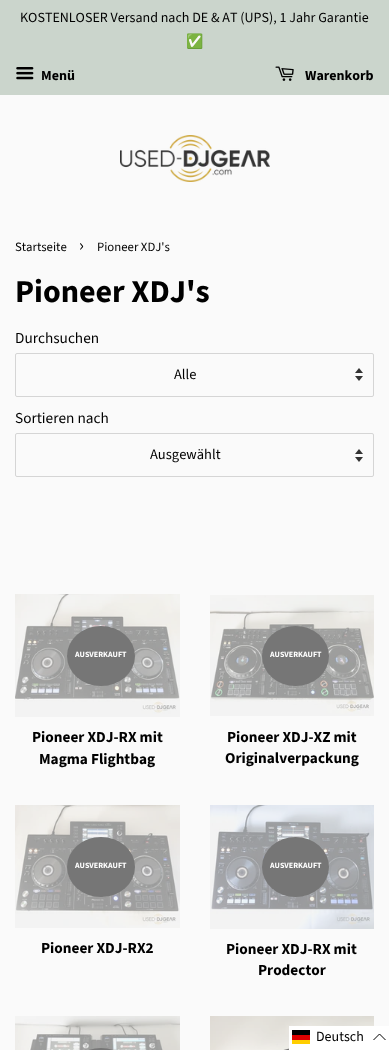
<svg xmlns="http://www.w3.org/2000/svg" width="389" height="1050">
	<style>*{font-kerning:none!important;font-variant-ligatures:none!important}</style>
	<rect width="100%" height="100%" fill="#FAFAFA" />
	<rect x="0" y="0" width="389" height="95" fill="#CBD5CC" />
	<text x="20" y="22" font-family="Source Sans Pro" font-size="14" fill="#000000">KOSTENLOSER Versand nach DE &amp; AT (UPS), 1 Jahr Garantie</text>
	<text x="186" y="46" font-family="Noto Color Emoji" font-size="14" fill="#000000">✅</text>
	<image x="16" y="67" width="18" height="13" href="assets/img1.png" />
	<text x="41" y="80" font-family="Source Sans Pro" font-size="14" font-weight="700" fill="#000000">Menü</text>
	<image x="275" y="66" width="19" height="15" href="assets/img2.png" />
	<text x="305" y="80" font-family="Source Sans Pro" font-size="14" font-weight="700" fill="#000000">Warenkorb</text>
	<image x="120" y="135" width="150" height="47" href="assets/img3.png" />
	<text x="15" y="251" font-family="Source Sans Pro" font-size="12.75" fill="#000000">Startseite</text>
	<text x="79" y="251" font-family="Source Sans Pro" font-size="18" fill="#000000">›</text>
	<text x="97" y="251" font-family="Source Sans Pro" font-size="12.75" fill="#000000">Pioneer XDJ's</text>
	<text x="15" y="302" font-family="Source Sans Pro" font-size="32" font-weight="700" fill="#000000">Pioneer XDJ's</text>
	<text x="15" y="343" font-family="Source Sans Pro" font-size="15.25" fill="#000000">Durchsuchen</text>
	<image x="355" y="368" width="8" height="13" href="assets/img4.png" />
	<rect x="15.5" y="353.5" width="358" height="43" rx="1.5" fill="none" stroke="#D5D5D5" />
	<text x="174" y="379" font-family="Source Sans Pro" font-size="14.5" fill="#000000">Alle</text>
	<text x="15" y="423" font-family="Source Sans Pro" font-size="15.25" fill="#000000">Sortieren nach</text>
	<image x="355" y="449" width="8" height="13" href="assets/img4.png" />
	<rect x="15.5" y="433.5" width="358" height="43" rx="1.5" fill="none" stroke="#D5D5D5" />
	<text x="150" y="459" font-family="Source Sans Pro" font-size="14.5" fill="#000000">Ausgewählt</text>
	<image x="15" y="594" width="165" height="123" href="assets/img5.png" />
	<ellipse cx="101" cy="656" rx="34" ry="30" fill="#767676" />
	<text x="75" y="657" font-family="Source Sans Pro" font-size="8" font-weight="700" fill="#FFFFFF">AUSVERKAUFT</text>
	<g font-family="Source Sans Pro" font-size="15.25" font-weight="700" fill="#000000">
		<text x="32" y="742">Pioneer XDJ-RX mit</text>
		<text x="39" y="764">Magma Flightbag</text>
	</g>
	<image x="210" y="595" width="164" height="121" href="assets/img6.png" />
	<ellipse cx="295.5" cy="656" rx="33.5" ry="30" fill="#767676" />
	<text x="270" y="657" font-family="Source Sans Pro" font-size="8" font-weight="700" fill="#FFFFFF">AUSVERKAUFT</text>
	<g font-family="Source Sans Pro" font-size="15.25" font-weight="700" fill="#000000">
		<text x="227" y="742">Pioneer XDJ-XZ mit</text>
		<text x="225" y="763">Originalverpackung</text>
	</g>
	<image x="15" y="805" width="165" height="123" href="assets/img7.png" />
	<ellipse cx="101" cy="867" rx="34" ry="30" fill="#767676" />
	<text x="75" y="868" font-family="Source Sans Pro" font-size="8" font-weight="700" fill="#FFFFFF">AUSVERKAUFT</text>
	<text x="41" y="953" font-family="Source Sans Pro" font-size="15.25" font-weight="700" fill="#000000">Pioneer XDJ-RX2</text>
	<image x="210" y="805" width="164" height="124" href="assets/img8.png" />
	<ellipse cx="295.5" cy="867" rx="33.5" ry="30" fill="#767676" />
	<text x="270" y="868" font-family="Source Sans Pro" font-size="8" font-weight="700" fill="#FFFFFF">AUSVERKAUFT</text>
	<g font-family="Source Sans Pro" font-size="15.25" font-weight="700" fill="#000000">
		<text x="226" y="954">Pioneer XDJ-RX mit</text>
		<text x="258" y="975">Prodector</text>
	</g>
	<image x="15" y="1016" width="165" height="34" href="assets/img9.png" />
	<ellipse cx="101" cy="1078" rx="34" ry="30" fill="#767676" />
	<image x="210" y="1016" width="164" height="34" href="assets/img10.png" />
	<ellipse cx="295.5" cy="1078" rx="33.5" ry="30" fill="#767676" />
	<rect x="289" y="1026" width="100" height="24" fill="#FFFFFF" />
	<rect x="292" y="1040" width="18" height="4" fill="#FFCE00" />
	<rect x="292" y="1030" width="18" height="5" fill="#000000" />
	<rect x="292" y="1035" width="18" height="5" fill="#DD0000" />
	<text x="316" y="1041" font-family="Source Sans Pro" font-size="14" fill="#000000">Deutsch</text>
	<path d="M385.5 1040L379.5 1034L373.5 1040" fill="none" stroke="#000000" />
</svg>
